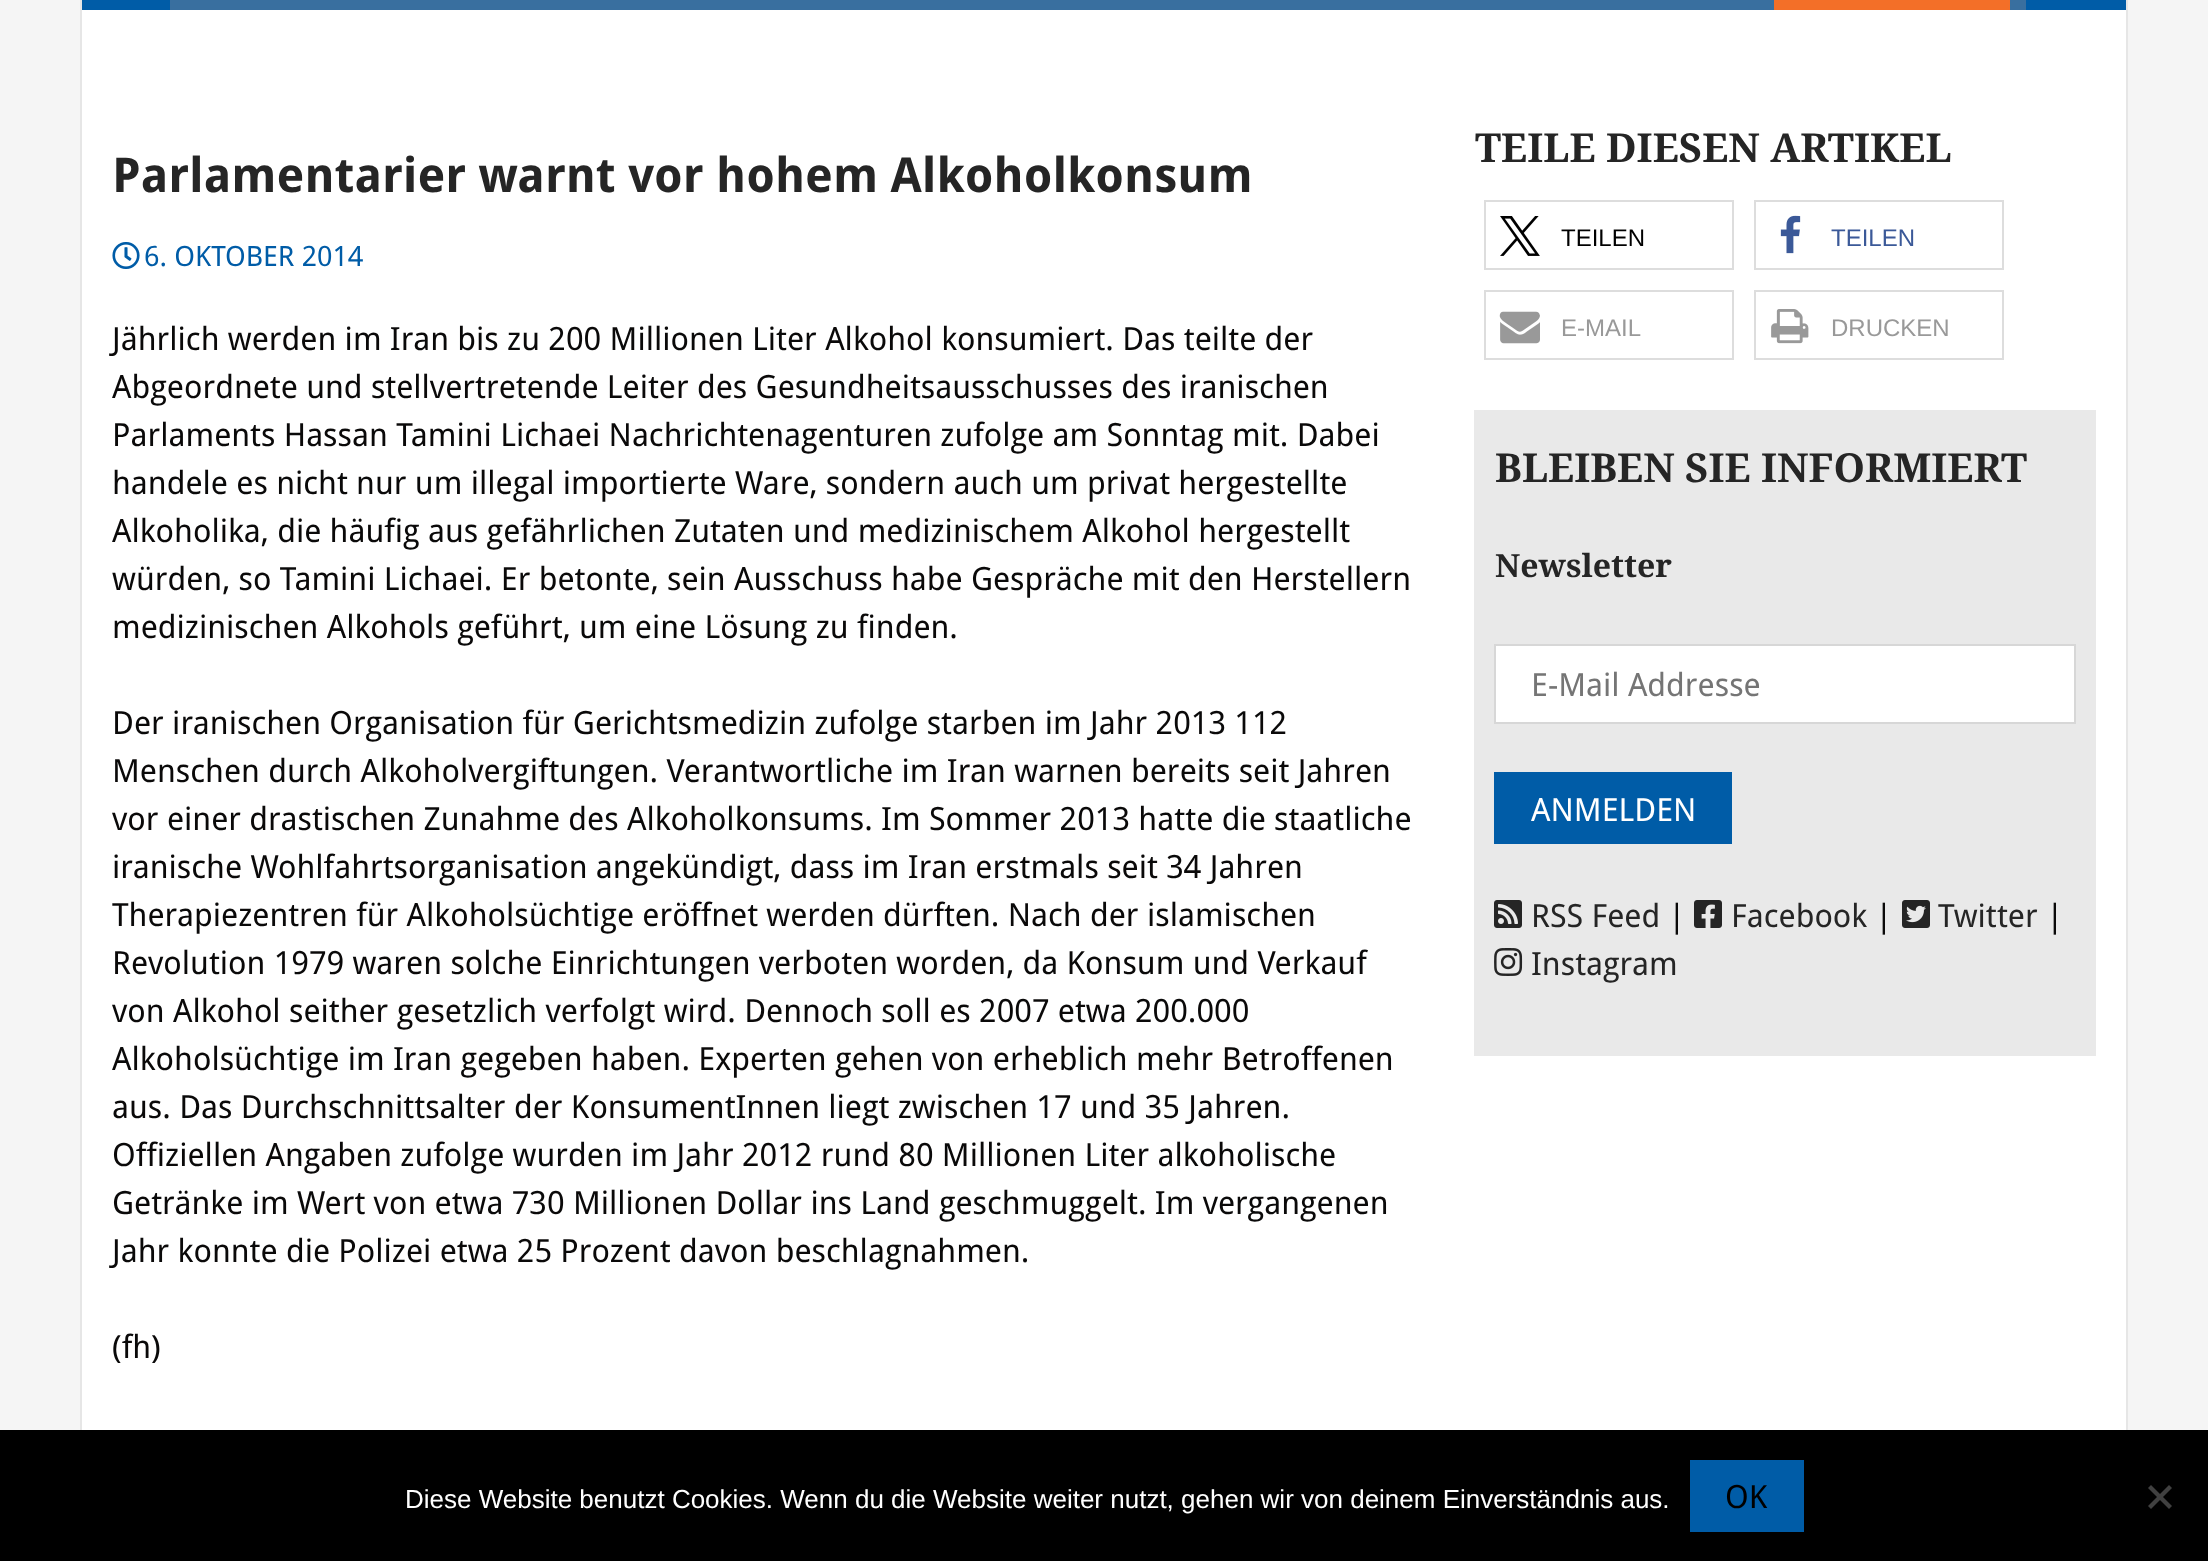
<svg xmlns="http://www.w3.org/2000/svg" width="2208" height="1561">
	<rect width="100%" height="100%" fill="#F5F5F5" />
	<rect x="82" y="10" width="2044" height="1420" fill="#FFFFFF" />
	<rect x="2126" y="0" width="2" height="1430" fill="#E6E6E6" />
	<rect x="80" y="0" width="2" height="1430" fill="#E6E6E6" />
	<rect x="170" y="0" width="1856" height="10" fill="#396F9F" />
	<rect x="82" y="0" width="88" height="10" fill="#005CA7" />
	<rect x="1774" y="0" width="236" height="10" fill="#F36F28" />
	<rect x="2026" y="0" width="100" height="10" fill="#005CA7" />
	<text x="112" y="192" font-family="Droid Sans" font-size="48" font-weight="700" fill="#252525">Parlamentarier warnt vor hohem Alkoholkonsum</text>
	<image x="112" y="242" width="28" height="27" href="assets/img1.png" />
	<text x="144" y="266" font-family="Droid Sans" font-size="28" fill="#005CA7">6. OKTOBER 2014</text>
	<g font-family="Droid Sans" font-size="32" fill="#0A0909">
		<text x="112" y="350">Jährlich werden im Iran bis zu 200 Millionen Liter Alkohol konsumiert. Das teilte der</text>
		<text x="112" y="398">Abgeordnete und stellvertretende Leiter des Gesundheitsausschusses des iranischen</text>
		<text x="112" y="446">Parlaments Hassan Tamini Lichaei Nachrichtenagenturen zufolge am Sonntag mit. Dabei</text>
		<text x="112" y="494">handele es nicht nur um illegal importierte Ware, sondern auch um privat hergestellte</text>
		<text x="112" y="542">Alkoholika, die häufig aus gefährlichen Zutaten und medizinischem Alkohol hergestellt</text>
		<text x="112" y="590">würden, so Tamini Lichaei. Er betonte, sein Ausschuss habe Gespräche mit den Herstellern</text>
		<text x="112" y="638">medizinischen Alkohols geführt, um eine Lösung zu finden.</text>
		<text x="112" y="734">Der iranischen Organisation für Gerichtsmedizin zufolge starben im Jahr 2013 112</text>
		<text x="112" y="782">Menschen durch Alkoholvergiftungen. Verantwortliche im Iran warnen bereits seit Jahren</text>
		<text x="112" y="830">vor einer drastischen Zunahme des Alkoholkonsums. Im Sommer 2013 hatte die staatliche</text>
		<text x="112" y="878">iranische Wohlfahrtsorganisation angekündigt, dass im Iran erstmals seit 34 Jahren</text>
		<text x="112" y="926">Therapiezentren für Alkoholsüchtige eröffnet werden dürften. Nach der islamischen</text>
		<text x="112" y="974">Revolution 1979 waren solche Einrichtungen verboten worden, da Konsum und Verkauf</text>
		<text x="112" y="1022">von Alkohol seither gesetzlich verfolgt wird. Dennoch soll es 2007 etwa 200.000</text>
		<text x="112" y="1070">Alkoholsüchtige im Iran gegeben haben. Experten gehen von erheblich mehr Betroffenen</text>
		<text x="112" y="1118">aus. Das Durchschnittsalter der KonsumentInnen liegt zwischen 17 und 35 Jahren.</text>
		<text x="112" y="1166">Offiziellen Angaben zufolge wurden im Jahr 2012 rund 80 Millionen Liter alkoholische</text>
		<text x="112" y="1214">Getränke im Wert von etwa 730 Millionen Dollar ins Land geschmuggelt. Im vergangenen</text>
		<text x="112" y="1262">Jahr konnte die Polizei etwa 25 Prozent davon beschlagnahmen.</text>
		<text x="112" y="1358">(fh)</text>
	</g>
	<text x="1475" y="162" font-family="Droid Serif" font-size="40" font-weight="700" fill="#252525">TEILE DIESEN ARTIKEL</text>
	<rect x="1485" y="201" width="248" height="68" fill="none" stroke="#DDDDDD" stroke-width="2" />
	<image x="1500" y="216" width="40" height="40" href="assets/img2.png" />
	<text x="1561" y="246" font-family="Liberation Sans" font-size="24" fill="#000000">TEILEN</text>
	<rect x="1755" y="201" width="248" height="68" fill="none" stroke="#DDDDDD" stroke-width="2" />
	<image x="1780" y="215" width="21" height="39" href="assets/img3.png" />
	<text x="1831" y="246" font-family="Liberation Sans" font-size="24" fill="#3B5998">TEILEN</text>
	<rect x="1485" y="291" width="248" height="68" fill="none" stroke="#DDDDDD" stroke-width="2" />
	<image x="1499" y="311" width="41" height="33" href="assets/img4.png" />
	<text x="1561" y="336" font-family="Liberation Sans" font-size="24" fill="#999999">E-MAIL</text>
	<rect x="1755" y="291" width="248" height="68" fill="none" stroke="#DDDDDD" stroke-width="2" />
	<image x="1771" y="309" width="38" height="35" href="assets/img5.png" />
	<text x="1831" y="336" font-family="Liberation Sans" font-size="24" fill="#999999">DRUCKEN</text>
	<rect x="1474" y="410" width="622" height="646" fill="#E9E9E9" />
	<text x="1495" y="482" font-family="Droid Serif" font-size="40" font-weight="700" fill="#252525">BLEIBEN SIE INFORMIERT</text>
	<text x="1495" y="577" font-family="Droid Serif" font-size="32" font-weight="700" fill="#252525">Newsletter</text>
	<rect x="1495" y="645" width="580" height="78" fill="#FFFFFF" stroke="#D7D7D7" stroke-width="2" />
	<text x="1531" y="696" font-family="Droid Sans" font-size="32" fill="#757575">E-Mail Addresse</text>
	<rect x="1494" y="772" width="238" height="72" fill="#005CA7" />
	<text x="1531" y="821" font-family="Droid Sans" font-size="32" fill="#FFFFFF">ANMELDEN</text>
	<image x="1494" y="900" width="28" height="28" href="assets/img6.png" />
	<text x="1531" y="927" font-family="Droid Sans" font-size="32" fill="#252525">RSS Feed</text>
	<text x="1668" y="927" font-family="Droid Sans" font-size="32" fill="#0A0909">|</text>
	<image x="1694" y="900" width="28" height="28" href="assets/img7.png" />
	<text x="1731" y="927" font-family="Droid Sans" font-size="32" fill="#252525">Facebook</text>
	<text x="1875" y="927" font-family="Droid Sans" font-size="32" fill="#0A0909">|</text>
	<image x="1902" y="900" width="28" height="28" href="assets/img8.png" />
	<text x="1938" y="927" font-family="Droid Sans" font-size="32" fill="#252525">Twitter</text>
	<text x="2046" y="927" font-family="Droid Sans" font-size="32" fill="#0A0909">|</text>
	<image x="1494" y="948" width="29" height="28" href="assets/img9.png" />
	<text x="1531" y="975" font-family="Droid Sans" font-size="32" fill="#252525">Instagram</text>
	<rect x="0" y="1430" width="2208" height="131" fill="#000000" />
	<text x="405" y="1508" font-family="Liberation Sans" font-size="26" fill="#FFFFFF">Diese Website benutzt Cookies. Wenn du die Website weiter nutzt, gehen wir von deinem Einverständnis aus.</text>
	<rect x="1690" y="1460" width="114" height="72" fill="#005CA7" />
	<text x="1725" y="1508" font-family="Droid Sans" font-size="32" fill="#000000">OK</text>
	<path d="M2169 1485L2172 1488L2151 1509L2148 1506Z" fill="#404040" />
	<path d="M2148 1488L2151 1485L2172 1506L2169 1509Z" fill="#404040" />
</svg>
